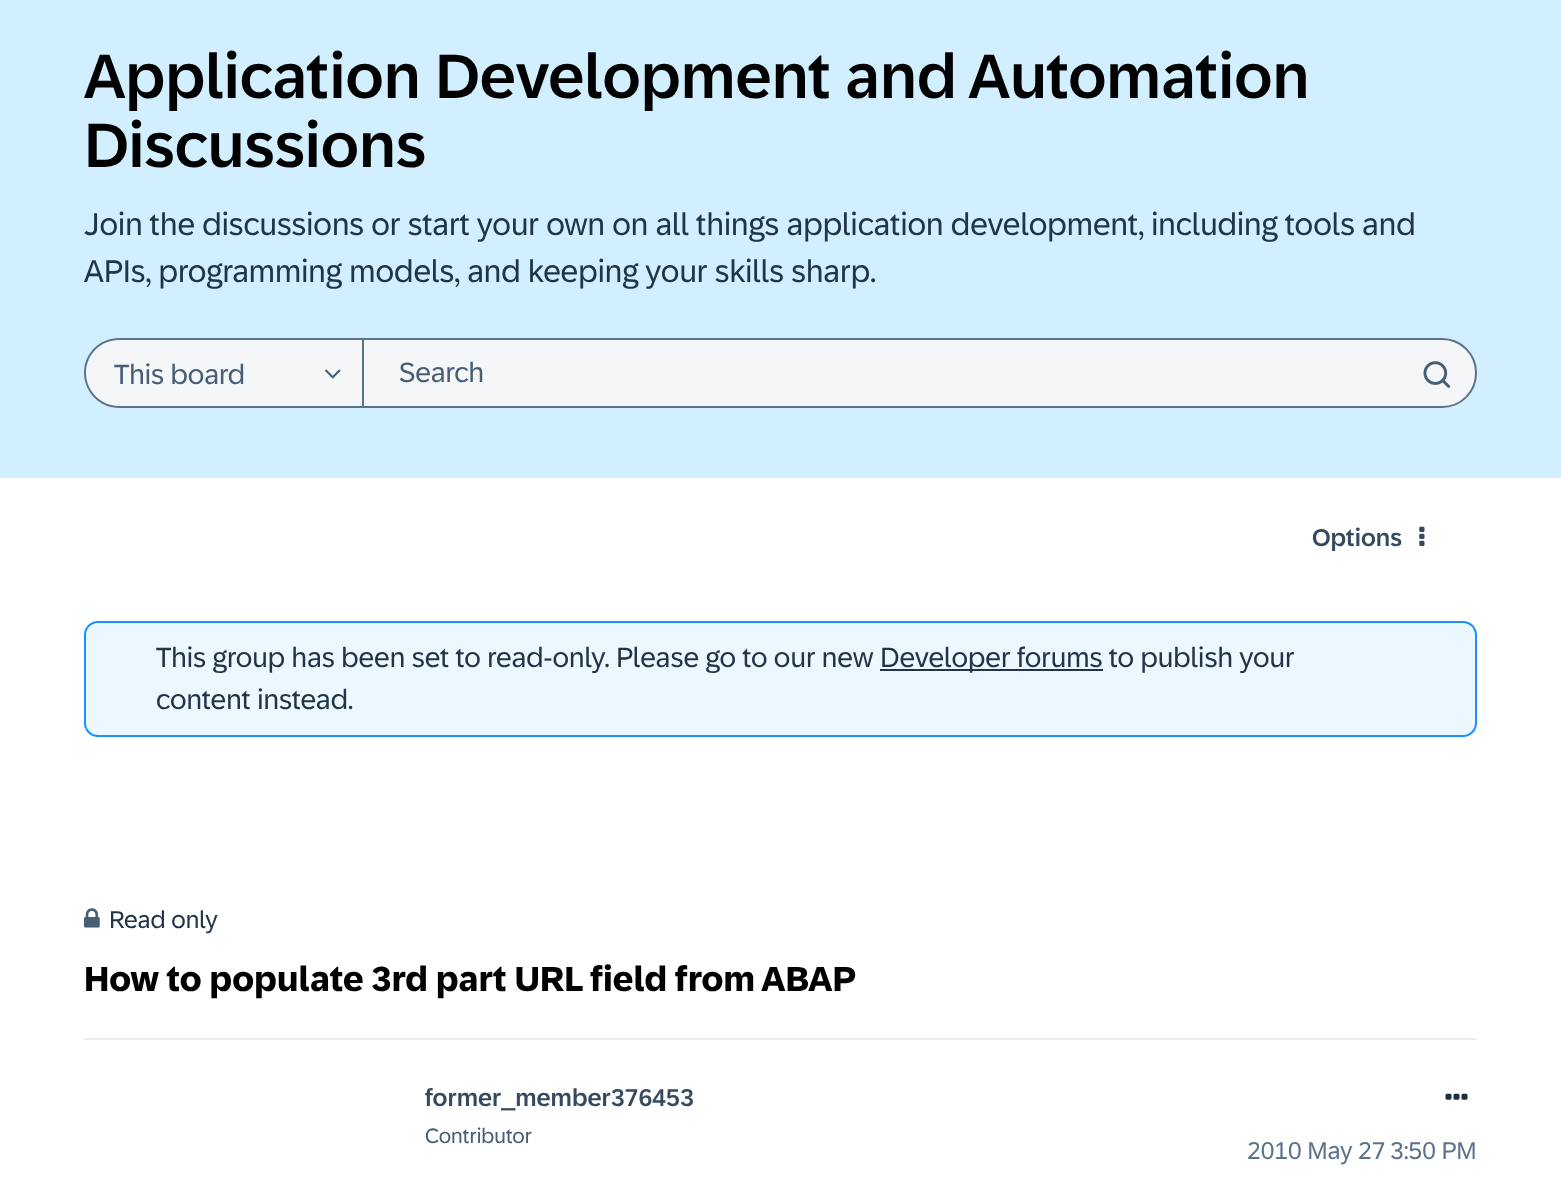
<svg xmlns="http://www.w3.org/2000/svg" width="1561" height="1178">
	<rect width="100%" height="100%" fill="#FFFFFF" />
	<rect x="0" y="0" width="1561" height="478" fill="#D1EFFF" />
	<g font-family="'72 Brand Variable'" font-size="63" font-weight="500" fill="#000000">
		<text x="84" y="98">Application Development and Automation</text>
		<text x="84" y="167">Discussions</text>
	</g>
	<g font-family="'72 Brand Variable'" font-size="31.5" fill="#223548">
		<text x="84" y="235">Join the discussions or start your own on all things application development, including tools and</text>
		<text x="84" y="282">APIs, programming models, and keeping your skills sharp.</text>
	</g>
	<path d="M119 338H362V408H119C99.5 408 84 392.5 84 373C84 353.5 99.5 338 119 338Z" fill="#F5F6F7" />
	<path d="M119 338H362V408H119C100 408 84 392 84 373C84 353 100 338 119 338ZM119 340H362V406H119C101 406 86 391 86 373C86 354 101 340 119 340Z" fill="#5B738B" fill-rule="evenodd" />
	<text x="114" y="384" font-family="'72 Brand Variable'" font-size="28" fill="#475E75">This board</text>
	<image x="325" y="369" width="16" height="10" href="assets/img1.png" />
	<path d="M363 339H1442C1461 339 1476 354 1476 373C1476 392 1461 407 1442 407H363Z" fill="#F5F6F7" stroke="#5B738B" stroke-width="2" />
	<text x="399" y="382" font-family="'72 Brand Variable'" font-size="28" fill="#475E75">Search</text>
	<image x="1423" y="361" width="28" height="27" href="assets/img2.png" />
	<text x="1312" y="546" font-family="'72 Brand Variable'" font-size="24.5" font-weight="500" fill="#354A5F">Options</text>
	<image x="1419" y="526" width="6" height="20" href="assets/img3.png" />
	<rect x="85" y="622" width="1391" height="114" rx="13" fill="#EBF8FF" stroke="#1B90FF" stroke-width="2" />
	<text x="156" y="667" font-family="'72 Brand Variable'" font-size="28" fill="#223548">This group has been set to read-only. Please go to our new</text>
	<rect x="880" y="669" width="223" height="2" fill="#223548" />
	<g font-family="'72 Brand Variable'" font-size="28" fill="#223548">
		<text x="880" y="667">Developer forums to publish your</text>
		<text x="156" y="709">content instead.</text>
	</g>
	<rect x="84" y="1038" width="1393" height="2" fill="#EAECEE" />
	<image x="84" y="908" width="16" height="20" href="assets/img4.png" />
	<text x="109" y="928" font-family="'72 Brand Variable'" font-size="24.5" fill="#223548">Read only</text>
	<text x="84" y="991" font-family="'72 Brand Variable'" font-size="35" font-weight="700" fill="#000000">How to populate 3rd part URL field from ABAP</text>
	<text x="425" y="1106" font-family="'72 Brand Variable'" font-size="24.5" font-weight="500" fill="#354A5F">former_member376453</text>
	<text x="425" y="1143" font-family="'72 Brand Variable'" font-size="21" fill="#475E75">Contributor</text>
	<image x="1445" y="1093" width="23" height="7" href="assets/img5.png" />
	<g font-family="'72 Brand Variable'" font-size="24.5" fill="#5B738B">
		<text x="1247" y="1159">2010 May 27</text>
		<text x="1390" y="1159">3:50 PM</text>
	</g>
</svg>
